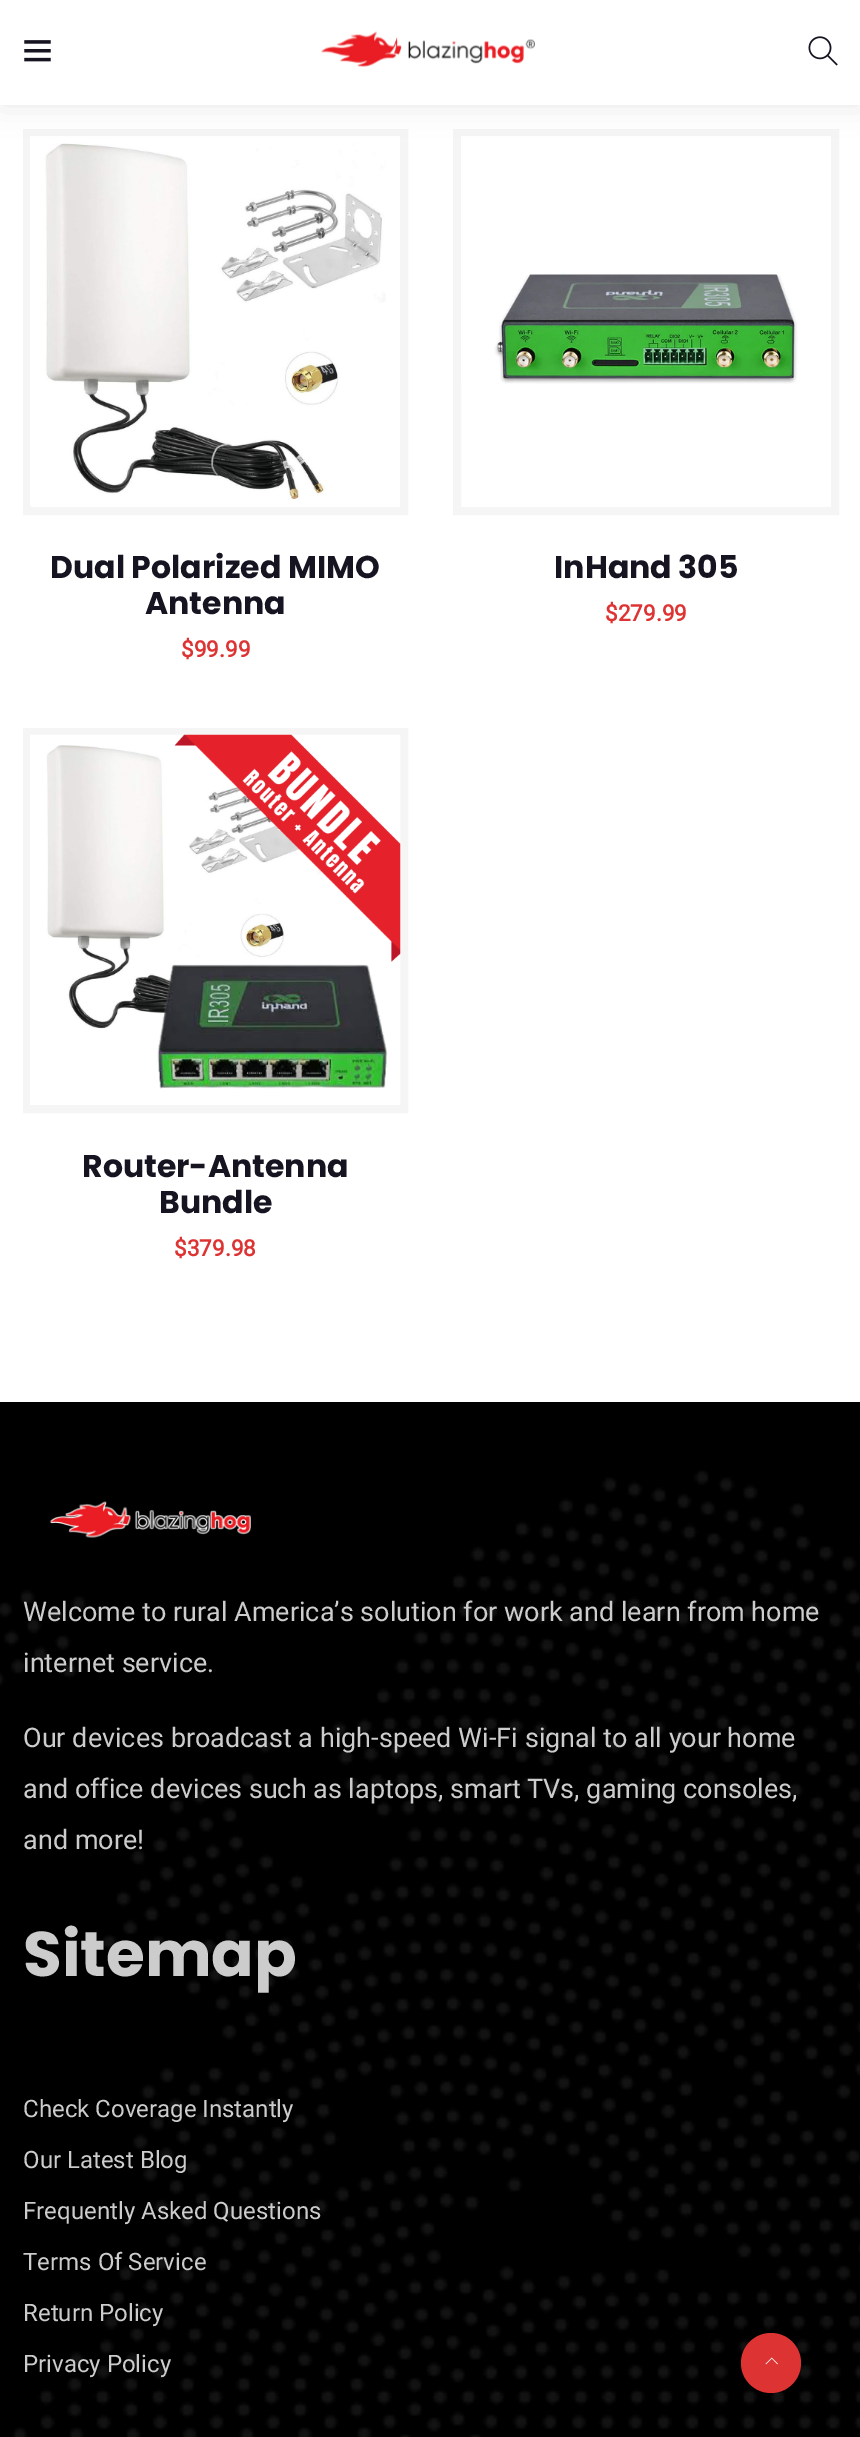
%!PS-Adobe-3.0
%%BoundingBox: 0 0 860 2437
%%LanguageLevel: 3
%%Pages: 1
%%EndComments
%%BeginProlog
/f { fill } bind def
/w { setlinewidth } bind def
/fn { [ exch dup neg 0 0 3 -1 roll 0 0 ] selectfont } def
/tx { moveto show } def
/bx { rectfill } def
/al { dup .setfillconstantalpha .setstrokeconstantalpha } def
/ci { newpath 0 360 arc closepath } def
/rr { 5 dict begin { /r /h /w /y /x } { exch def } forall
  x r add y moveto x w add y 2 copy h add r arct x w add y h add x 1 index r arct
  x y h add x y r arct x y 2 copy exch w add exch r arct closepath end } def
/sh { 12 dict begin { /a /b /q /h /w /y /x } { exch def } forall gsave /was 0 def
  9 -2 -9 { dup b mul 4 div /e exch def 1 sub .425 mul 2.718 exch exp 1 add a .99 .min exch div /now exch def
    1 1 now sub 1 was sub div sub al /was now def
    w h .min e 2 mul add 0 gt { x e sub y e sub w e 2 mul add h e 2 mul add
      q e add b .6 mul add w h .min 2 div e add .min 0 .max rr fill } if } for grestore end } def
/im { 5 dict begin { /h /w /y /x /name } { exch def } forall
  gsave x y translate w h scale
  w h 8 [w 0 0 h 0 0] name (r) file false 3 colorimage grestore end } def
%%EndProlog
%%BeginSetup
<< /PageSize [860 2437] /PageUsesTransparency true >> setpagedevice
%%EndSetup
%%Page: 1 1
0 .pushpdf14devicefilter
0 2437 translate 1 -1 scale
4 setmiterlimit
1 setgray
0 0 860 2437 bx
0.961 setgray
8 w
27 133 377 378 rectstroke
(image3.raw) 30 136 370 370 im
457 133 378 378 rectstroke
(image4.raw) 461 136 370 248 im
0 setgray
2 2 858 102 0 15 0.1 sh
1 setgray
0 0 860 105 bx
(image0.raw) 24 40 27 22 im
(image1.raw) 321 31 214 36 im
(image2.raw) 808 36 30 30 im
/Poppins-Bold 31.5 fn
0.09 0.078 0.133 setrgbcolor
(Dual Polarized MIMO) 50 578 tx
(Antenna) 145 614 tx
/Roboto-Bold 22.5 fn
0.867 0.2 0.196 setrgbcolor
($99.99) 181 657 tx
/Poppins-Bold 31.5 fn
0.09 0.078 0.133 setrgbcolor
(InHand 305) 554 578 tx
/Roboto-Bold 22.5 fn
0.867 0.2 0.196 setrgbcolor
($279.99) 605 621 tx
0.961 setgray
27 732 377 377 rectstroke
(image5.raw) 30 734 371 371 im
/Poppins-Bold 31.5 fn
0.09 0.078 0.133 setrgbcolor
(Router-Antenna) 82 1177 tx
(Bundle) 159 1213 tx
/Roboto-Bold 22.5 fn
0.867 0.2 0.196 setrgbcolor
($379.98) 174 1256 tx
(image6.raw) 0 1402 860 1035 im
(image7.raw) 49 1501 202 37 im
/Roboto-Regular 27 fn
0.8 setgray
(Welcome to rural America’s solution for work and learn from home) 23 1621 tx
(internet service.) 23 1672 tx
(Our devices broadcast a high-speed Wi-Fi signal to all your home) 23 1747 tx
(and office devices such as laptops, smart TVs, gaming consoles,) 23 1798 tx
(and more!) 23 1849 tx
/Poppins-Bold 63 fn
(Sitemap) 23 1976 tx
/Roboto-Regular 24 fn
(Check Coverage Instantly) 23 2117 tx
(Our Latest Blog) 23 2168 tx
(Frequently Asked Questions) 23 2219 tx
(Terms Of Service) 23 2270 tx
(Return Policy) 23 2321 tx
(Privacy Policy) 23 2372 tx
0.867 0.2 0.196 setrgbcolor
771 2363 30 ci f
(image8.raw) 765 2357 13 8 im
.poppdf14devicefilter showpage
%%EOF
